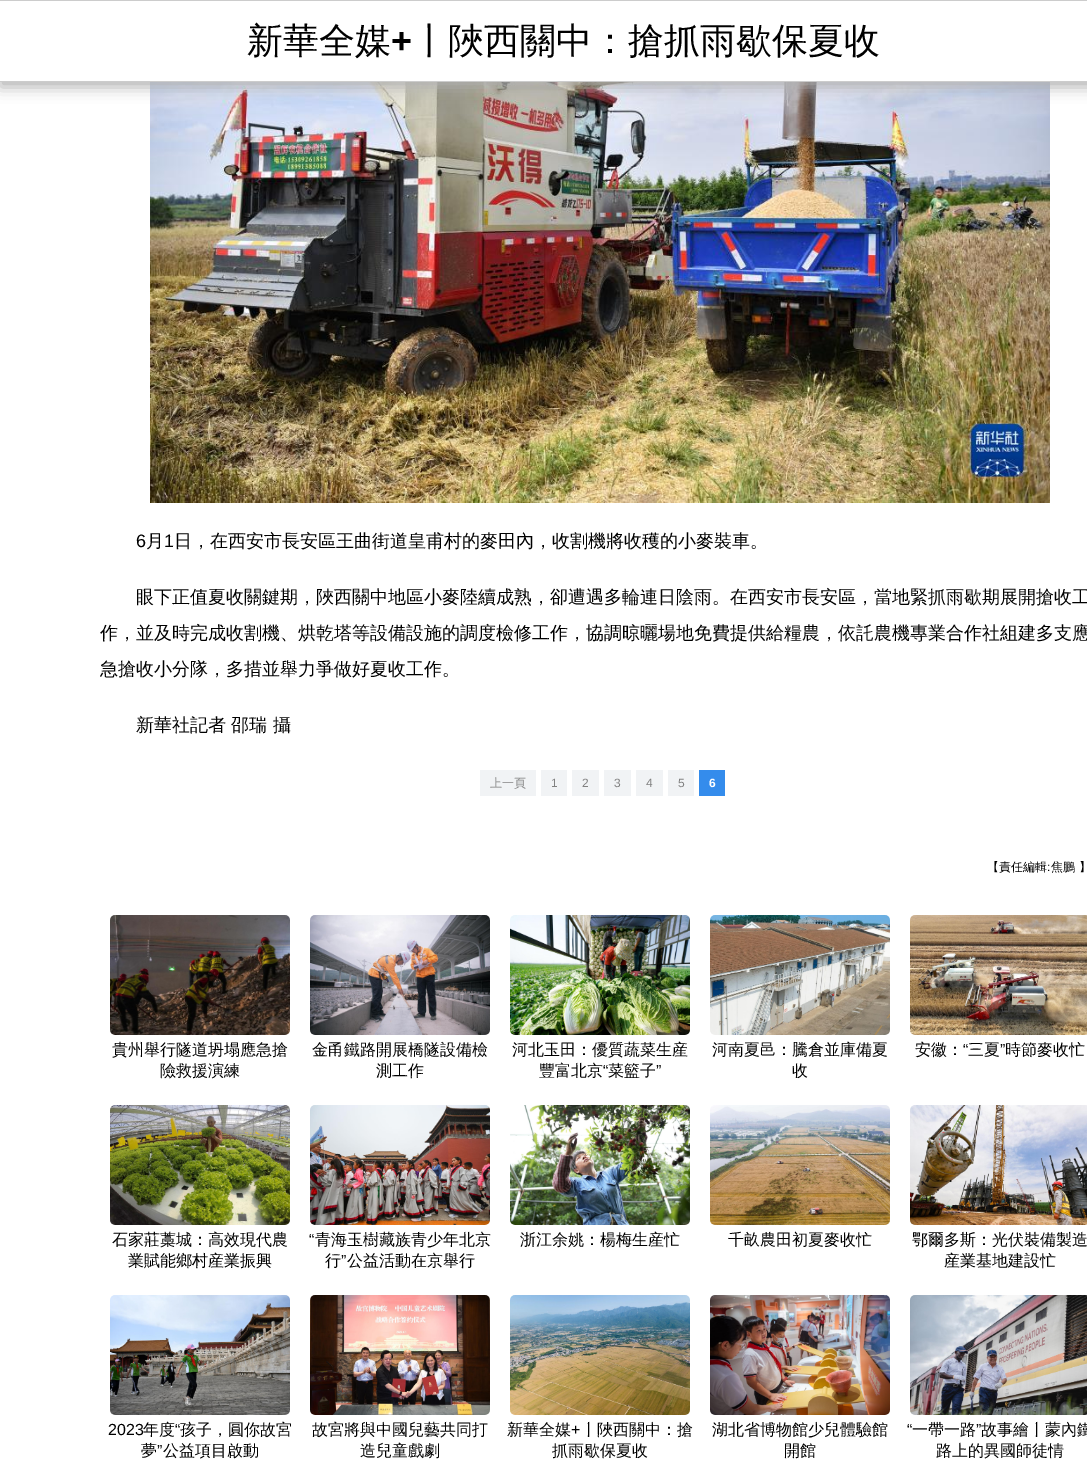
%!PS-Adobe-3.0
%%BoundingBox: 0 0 1087 1466
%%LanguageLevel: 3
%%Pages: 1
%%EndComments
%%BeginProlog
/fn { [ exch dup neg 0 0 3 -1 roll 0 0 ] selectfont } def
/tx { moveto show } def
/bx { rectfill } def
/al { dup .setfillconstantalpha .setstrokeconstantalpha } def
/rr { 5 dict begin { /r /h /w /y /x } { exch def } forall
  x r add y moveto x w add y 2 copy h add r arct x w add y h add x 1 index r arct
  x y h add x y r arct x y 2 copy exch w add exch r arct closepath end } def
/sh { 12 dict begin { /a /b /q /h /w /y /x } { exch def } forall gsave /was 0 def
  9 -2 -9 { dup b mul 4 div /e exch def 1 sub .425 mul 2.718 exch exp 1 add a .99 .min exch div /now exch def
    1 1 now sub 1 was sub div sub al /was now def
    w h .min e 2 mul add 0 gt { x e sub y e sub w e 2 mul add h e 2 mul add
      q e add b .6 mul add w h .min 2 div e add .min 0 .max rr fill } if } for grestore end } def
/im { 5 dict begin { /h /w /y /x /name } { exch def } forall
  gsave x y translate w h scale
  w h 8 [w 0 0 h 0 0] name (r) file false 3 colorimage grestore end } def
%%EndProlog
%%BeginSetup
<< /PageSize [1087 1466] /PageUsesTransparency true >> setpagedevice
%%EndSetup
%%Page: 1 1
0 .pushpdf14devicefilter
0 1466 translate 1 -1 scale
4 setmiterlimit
1 setgray
0 0 1087 1466 bx
(image0.raw) 150 82 900 421 im
0.694 setgray
0 5 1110 82 0 7.5 1 sh
1 setgray
0 1 1087 80 bx
0.8 setgray
0 0 1087 1 bx
0 81 1087 1 bx
/WenQuanYiZenHei-Medium 36 fn
0 setgray
(新華全媒) 247 53 tx
/LiberationSans-Bold 36 fn
(+) 391 53 tx
/WenQuanYiZenHei-Medium 36 fn
(丨陜西關中：搶抓雨歇保夏收) 412 53 tx
/LiberationSans-Regular 18 fn
(6) 136 547 tx
/WenQuanYiZenHei-Medium 18 fn
(月) 146 547 tx
/LiberationSans-Regular 18 fn
(1) 164 547 tx
/WenQuanYiZenHei-Medium 18 fn
(日，在西安市長安區王曲街道皇甫村的麥田內，收割機將收穫的小麥裝車。) 174 547 tx
(眼下正值夏收關鍵期，陜西關中地區小麥陸續成熟，卻遭遇多輪連日陰雨。在西安市長安區，當地緊抓雨歇期展開搶收工) 136 603 tx
(作，並及時完成收割機、烘乾塔等設備設施的調度檢修工作，協調晾曬場地免費提供給糧農，依託農機專業合作社組建多支應) 100 639 tx
(急搶收小分隊，多措並舉力爭做好夏收工作。) 100 675 tx
(新華社記者 邵瑞 攝) 136 731 tx
0.945 0.953 0.961 setrgbcolor
480 770 56 26 bx
/WenQuanYiZenHei-Medium 12 fn
0.506 setgray
(上一頁) 490 787 tx
0.945 0.953 0.961 setrgbcolor
541 770 26 26 bx
/LiberationSans-Regular 12 fn
0.506 setgray
(1) 551 787 tx
0.945 0.953 0.961 setrgbcolor
572 770 27 26 bx
0.506 setgray
(2) 582 787 tx
0.945 0.953 0.961 setrgbcolor
604 770 27 26 bx
0.506 setgray
(3) 614 787 tx
0.945 0.953 0.961 setrgbcolor
636 770 27 26 bx
0.506 setgray
(4) 646 787 tx
0.945 0.953 0.961 setrgbcolor
668 770 26 26 bx
0.506 setgray
(5) 678 787 tx
0.204 0.549 0.925 setrgbcolor
699 770 26 26 bx
/LiberationSans-Bold 12 fn
1 setgray
(6) 709 787 tx
/WenQuanYiZenHei-Medium 12 fn
0 setgray
(【責任編輯) 987 871 tx
/LiberationSans-Regular 12 fn
(:) 1047 871 tx
/WenQuanYiZenHei-Medium 12 fn
(焦鵬 】) 1051 871 tx
(image1.raw) 110 915 180 120 im
/WenQuanYiZenHei-Medium 16 fn
(貴州舉行隧道坍塌應急搶) 112 1055 tx
(險救援演練) 160 1076 tx
(image2.raw) 310 915 180 120 im
(金甬鐵路開展橋隧設備檢) 312 1055 tx
(測工作) 376 1076 tx
(image3.raw) 510 915 180 120 im
(河北玉田：優質蔬菜生産) 512 1055 tx
(豐富北京) 539 1076 tx
/LiberationSans-Regular 16 fn
(“) 603 1076 tx
/WenQuanYiZenHei-Medium 16 fn
(菜籃子) 608 1076 tx
/LiberationSans-Regular 16 fn
(”) 656 1076 tx
(image4.raw) 710 915 180 120 im
/WenQuanYiZenHei-Medium 16 fn
(河南夏邑：騰倉並庫備夏) 712 1055 tx
(收) 792 1076 tx
(image5.raw) 910 915 177 120 im
(安徽：) 915 1055 tx
/LiberationSans-Regular 16 fn
(“) 963 1055 tx
/WenQuanYiZenHei-Medium 16 fn
(三夏) 968 1055 tx
/LiberationSans-Regular 16 fn
(”) 1000 1055 tx
/WenQuanYiZenHei-Medium 16 fn
(時節麥收忙) 1005 1055 tx
(image6.raw) 110 1105 180 120 im
(石家莊藁城：高效現代農) 112 1245 tx
(業賦能鄉村産業振興) 128 1266 tx
(image7.raw) 310 1105 180 120 im
/LiberationSans-Regular 16 fn
(“) 309 1245 tx
/WenQuanYiZenHei-Medium 16 fn
(青海玉樹藏族青少年北京) 315 1245 tx
(行) 325 1266 tx
/LiberationSans-Regular 16 fn
(”) 341 1266 tx
/WenQuanYiZenHei-Medium 16 fn
(公益活動在京舉行) 347 1266 tx
(image8.raw) 510 1105 180 120 im
(浙江余姚：楊梅生産忙) 520 1245 tx
(image9.raw) 710 1105 180 120 im
(千畝農田初夏麥收忙) 728 1245 tx
(image10.raw) 910 1105 177 120 im
(鄂爾多斯：光伏裝備製造) 912 1245 tx
(産業基地建設忙) 944 1266 tx
(image11.raw) 110 1295 180 120 im
/LiberationSans-Regular 16 fn
(2023) 108 1435 tx
/WenQuanYiZenHei-Medium 16 fn
(年度) 143 1435 tx
/LiberationSans-Regular 16 fn
(“) 175 1435 tx
/WenQuanYiZenHei-Medium 16 fn
(孩子，圓你故宮) 180 1435 tx
(夢) 141 1456 tx
/LiberationSans-Regular 16 fn
(”) 157 1456 tx
/WenQuanYiZenHei-Medium 16 fn
(公益項目啟動) 163 1456 tx
(image12.raw) 310 1295 180 120 im
(故宮將與中國兒藝共同打) 312 1435 tx
(造兒童戲劇) 360 1456 tx
(image13.raw) 510 1295 180 120 im
(新華全媒) 507 1435 tx
/LiberationSans-Regular 16 fn
(+) 571 1435 tx
/WenQuanYiZenHei-Medium 16 fn
(丨陜西關中：搶) 581 1435 tx
(抓雨歇保夏收) 552 1456 tx
(image14.raw) 710 1295 180 120 im
(湖北省博物館少兒體驗館) 712 1435 tx
(開館) 784 1456 tx
(image15.raw) 910 1295 177 120 im
/LiberationSans-Regular 16 fn
(“) 907 1435 tx
/WenQuanYiZenHei-Medium 16 fn
(一帶一路) 912 1435 tx
/LiberationSans-Regular 16 fn
(”) 976 1435 tx
/WenQuanYiZenHei-Medium 16 fn
(故事繪丨蒙內鐵) 981 1435 tx
(路上的異國師徒情) 936 1456 tx
.poppdf14devicefilter showpage
%%EOF
